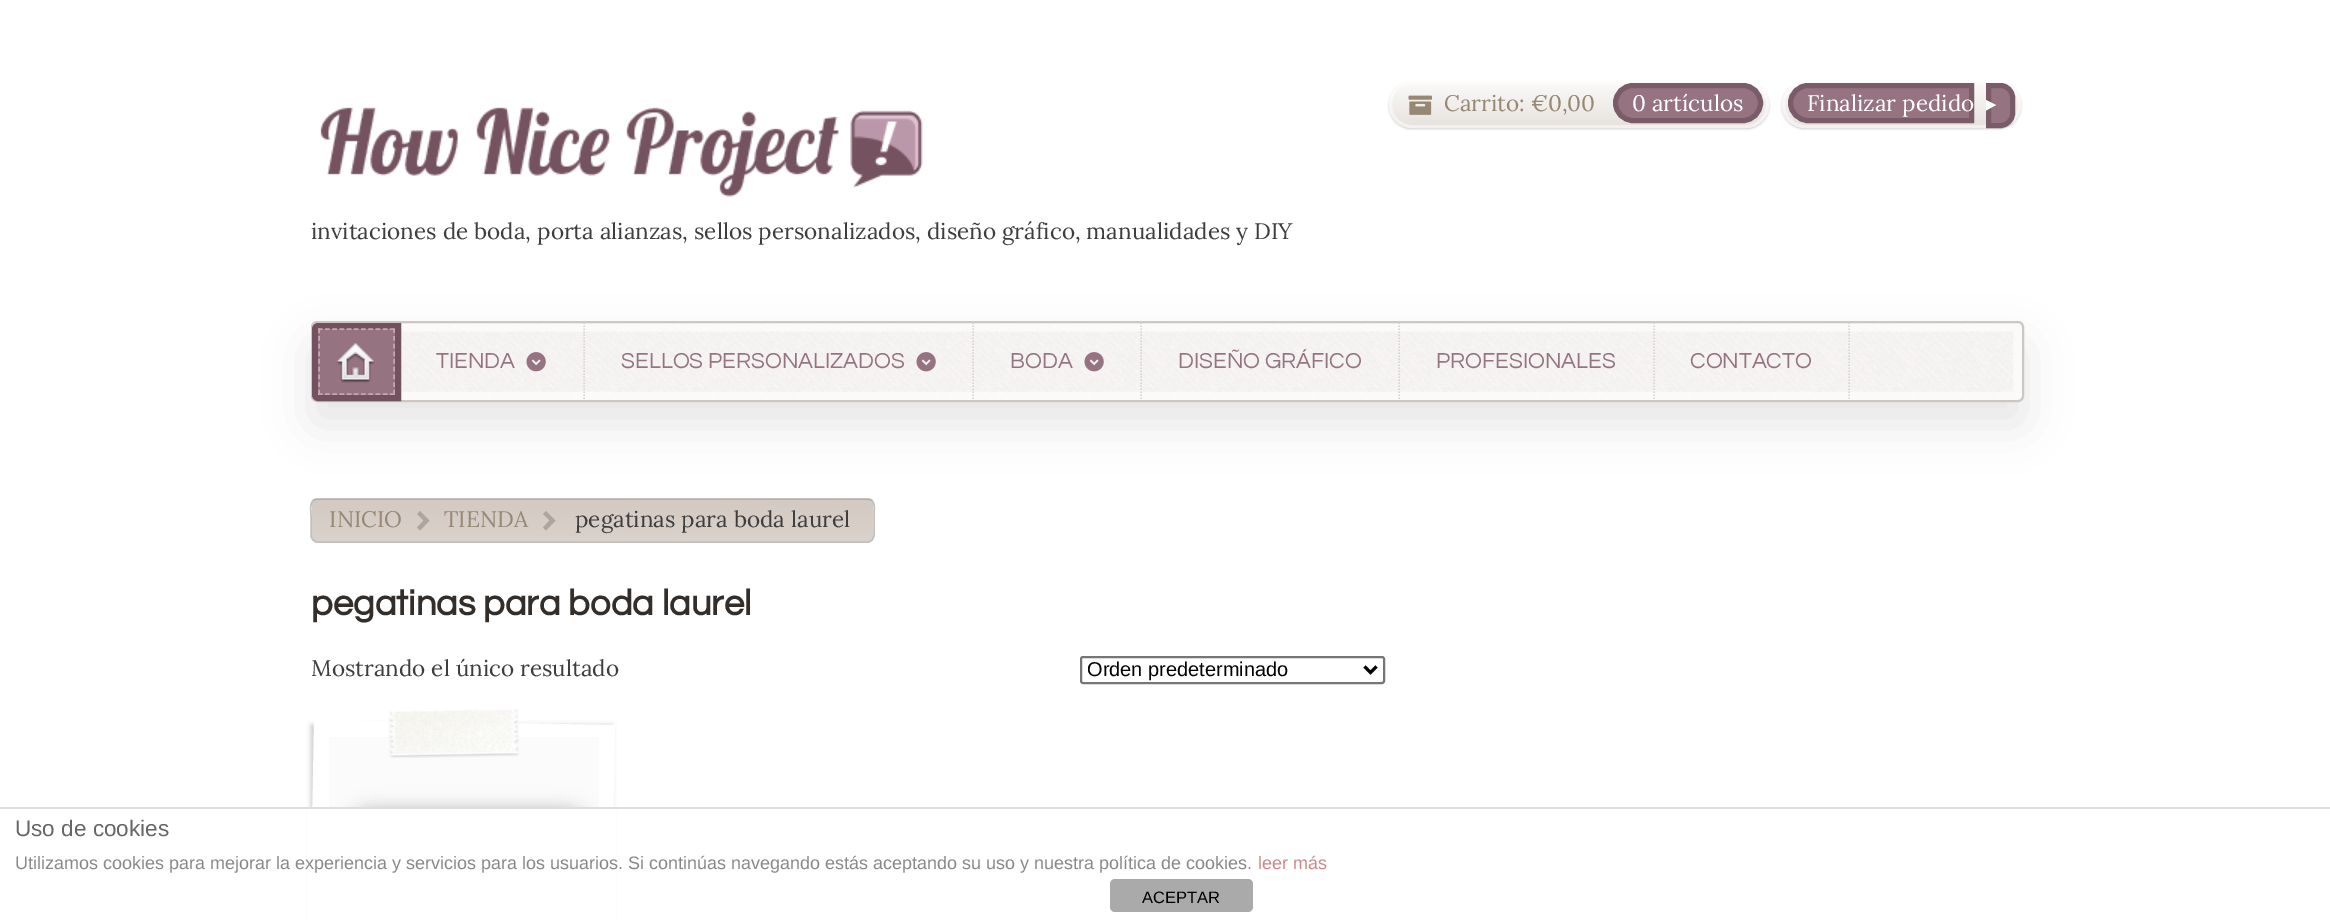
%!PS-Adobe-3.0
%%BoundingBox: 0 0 2330 920
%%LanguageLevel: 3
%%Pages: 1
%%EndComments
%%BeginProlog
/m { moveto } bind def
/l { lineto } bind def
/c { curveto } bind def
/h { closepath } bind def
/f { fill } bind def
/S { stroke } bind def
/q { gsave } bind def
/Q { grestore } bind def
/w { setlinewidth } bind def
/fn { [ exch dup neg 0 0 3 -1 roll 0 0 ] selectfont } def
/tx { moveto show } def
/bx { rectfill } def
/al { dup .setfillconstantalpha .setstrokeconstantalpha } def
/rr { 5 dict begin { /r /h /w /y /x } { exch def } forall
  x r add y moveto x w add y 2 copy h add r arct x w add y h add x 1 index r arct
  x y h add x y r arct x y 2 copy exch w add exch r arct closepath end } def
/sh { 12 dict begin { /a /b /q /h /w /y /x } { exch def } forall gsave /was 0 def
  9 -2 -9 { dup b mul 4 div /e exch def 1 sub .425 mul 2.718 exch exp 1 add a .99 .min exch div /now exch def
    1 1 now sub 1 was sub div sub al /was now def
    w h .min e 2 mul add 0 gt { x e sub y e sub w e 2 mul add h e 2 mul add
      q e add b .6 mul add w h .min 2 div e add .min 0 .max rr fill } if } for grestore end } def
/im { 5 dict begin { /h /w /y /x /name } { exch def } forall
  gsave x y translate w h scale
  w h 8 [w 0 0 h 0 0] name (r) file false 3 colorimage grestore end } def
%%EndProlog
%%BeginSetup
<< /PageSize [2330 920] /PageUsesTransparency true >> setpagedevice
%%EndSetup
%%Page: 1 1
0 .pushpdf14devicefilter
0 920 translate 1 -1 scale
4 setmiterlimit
1 setgray
0 0 2330 920 bx
0 setgray
1389 83 380 46 23 1 0.2 sh
q 1389 81 380 47 23 rr clip newpath
<< /ShadingType 2 /ColorSpace /DeviceRGB /Coords [1579 81 1579 128] /Extend [true true] /Function << /FunctionType 2 /Domain [0 1] /C0 [0.988 0.984 0.98] /C1 [0.902 0.882 0.867] /N 1 >> >> shfill Q
0.5 al
1 setgray
3 w
1390.5 82.5 377 44 21.5 rr S
1 al
(image0.raw) 1408 95 24 20 im
/Lora-Regular 22.5 fn
0.588 0.533 0.451 setrgbcolor
(Carrito: €0,00) 1444 111 tx
0.588 0.451 0.506 setrgbcolor
1615.5 85.5 145 35 17.5 rr q f Q
0.478 0.361 0.408 setrgbcolor
5 w
S
1 setgray
(0 artículos) 1632 111 tx
0 setgray
1782 83 239 46 23 1 0.2 sh
q 1782 81 239 47 23 rr clip newpath
<< /ShadingType 2 /ColorSpace /DeviceRGB /Coords [1901 81 1901 128] /Extend [true true] /Function << /FunctionType 2 /Domain [0 1] /C0 [0.988 0.984 0.98] /C1 [0.902 0.882 0.867] /N 1 >> >> shfill Q
0.5 al
1 setgray
3 w
1783.5 82.5 236 44 21.5 rr S
1 al
0.588 0.451 0.506 setrgbcolor
1808 85.5 m 1971.5 85.5 l 1971.5 120.5 l 1808 120.5 l 1798.5 120.5 1790.5 112.5 1790.5 103 c 1790.5 93.5 1798.5 85.5 1808 85.5 c h q f Q
0.478 0.361 0.408 setrgbcolor
5 w
S
0.588 0.451 0.506 setrgbcolor
1988.5 85.5 m 2000.5 85.5 l 2007 85.5 2012.5 91 2012.5 97.5 c 2012.5 113.5 l 2012.5 120 2007 125.5 2000.5 125.5 c 1988.5 125.5 l h q f Q
0.478 0.361 0.408 setrgbcolor
S
1 setgray
(Finalizar pedido) 1807 111 tx
1996 105 m 1986 110.5 l 1986 100 l h f
(image1.raw) 320 107 603 90 im
0.243 setgray
(invitaciones de boda, porta alianzas, sellos personalizados, diseño gráfico, manualidades y DIY) 311 239 tx
0 setgray
311 344 1713 81 6 22.5 0.1 sh
(image2.raw) 312 323 1710 77 im
0.6 al
1 setgray
8.6 w
316.5 327 m 2017.5 327 l 2017.5 396 l 316.5 396 l h S
1 al
0.8 0.78 0.765 setrgbcolor
2 w
312 322 1711 79 5 rr S
0.455 0.318 0.373 setrgbcolor
6 w
318 326 m 398 326 l 398 398 l 318 398 l 316.5 398 315 396.5 315 395 c 315 329 l 315 327.5 316.5 326 318 326 c h S
0.588 0.451 0.506 setrgbcolor
318 329 77 66 bx
(image3.raw) 336 343 39 40 im
0.788 0.651 0.706 setrgbcolor
1.5 w
[4.5 2.7] 0 setdash
318 329 m 394.5 329 l S
[4.5 3.18] 0 setdash
394 328.5 m 394 394.5 l S
[4.5 2.7] 0 setdash
318 394 m 394.5 394 l S
[4.5 3.18] 0 setdash
319 328.5 m 319 394.5 l S
0.859 0.831 0.808 setrgbcolor
[1.5 1.5] 0 setdash
584 322.5 m 584 400.5 l S
/Questrial-Regular 22.5 fn
0.588 0.451 0.506 setrgbcolor
(TIENDA) 436 368 tx
(image4.raw) 526 352 20 20 im
0.859 0.831 0.808 setrgbcolor
973 322.5 m 973 400.5 l S
0.588 0.451 0.506 setrgbcolor
(SELLOS PERSONALIZADOS) 621 368 tx
(image5.raw) 916 352 20 20 im
0.859 0.831 0.808 setrgbcolor
1141 322.5 m 1141 400.5 l S
0.588 0.451 0.506 setrgbcolor
(BODA) 1010 368 tx
(image6.raw) 1084 352 20 20 im
0.859 0.831 0.808 setrgbcolor
1399 322.5 m 1399 399 l S
0.588 0.451 0.506 setrgbcolor
(DISEÑO GRÁFICO) 1178 368 tx
0.859 0.831 0.808 setrgbcolor
1654 322.5 m 1654 399 l S
0.588 0.451 0.506 setrgbcolor
(PROFESIONALES) 1436 368 tx
0.859 0.831 0.808 setrgbcolor
1849 322.5 m 1849 399 l S
0.588 0.451 0.506 setrgbcolor
(CONTACTO) 1690 368 tx
q 312 500 561 42 6 rr clip newpath
<< /ShadingType 2 /ColorSpace /DeviceRGB /Coords [593 500 593 542] /Extend [true true] /Function << /FunctionType 2 /Domain [0 1] /C0 [0.827 0.792 0.765] /C1 [0.851 0.82 0.796] /N 1 >> >> shfill Q
0.702 0.682 0.667 setrgbcolor
[] 0 setdash
313 500.5 m 314.5 499.5 316 499 318 499 c 867 499 l 869 499 870.5 499.5 872 500.5 c S
0.769 0.749 0.733 setrgbcolor
872 500.5 m 875.5 504.5 874 511 874 515.5 c 874 535.5 l 873.5 539 871.5 541.5 868.5 542 c 316.5 542 l 313.5 541.5 311.5 539 311 535.5 c 311 515.5 l 311 511 309.5 504.5 313 500.5 c S
/Lora-Regular 22.5 fn
0.588 0.533 0.451 setrgbcolor
(INICIO) 329 527 tx
0.69 0.647 0.612 setrgbcolor
420 511 m 429.5 520.5 l 420 530.5 l 417 527.5 l 423.5 520.5 l 417 514 l h f
0.588 0.533 0.451 setrgbcolor
(TIENDA) 444 527 tx
0.69 0.647 0.612 setrgbcolor
546 511 m 555.5 520.5 l 546 530.5 l 543 527.5 l 549.5 520.5 l 543 514 l h f
0.243 setgray
(pegatinas para boda laurel) 575 527 tx
/Questrial-Bold 36.4 fn
0.204 0.18 0.165 setrgbcolor
(pegatinas para boda laurel) 311 615 tx
/Lora-Regular 22.5 fn
0.243 setgray
(Mostrando el único resultado) 311 676 tx
0.463 setgray
2 w
1081 657 303 26 2 rr S
0 setgray
3 w
1364.5 666.5 m 1370.5 672.5 l 1376.5 666.5 l S
/LiberationSans-Regular 20 fn
(Orden predeterminado) 1087 676 tx
311 725 301 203 0 2.5 0.2 sh
1 setgray
314 720 m 615 725 l 609 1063 l 308 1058 l h f
(image8.raw) 329 737 270 70 im
(image7.raw) 388 709 131 49 im
307 809 309 111 bx
0.867 setgray
0 807 2330 2 bx
/LiberationSans-Regular 22.5 fn
0.4 setgray
(Uso de cookies) 15 836 tx
/LiberationSans-Regular 18 fn
0.533 setgray
(Utilizamos cookies para mejorar la experiencia y servicios para los usuarios. Si continúas navegando estás aceptando su uso y nuestra política de cookies.) 15 869 tx
0.8 0.533 0.533 setrgbcolor
(leer más) 1258 869 tx
0.667 setgray
1110 879 143 33 5 rr f
/LiberationSans-Regular 16.5 fn
0 setgray
(ACEPTAR) 1142 903 tx
.poppdf14devicefilter showpage
%%EOF
